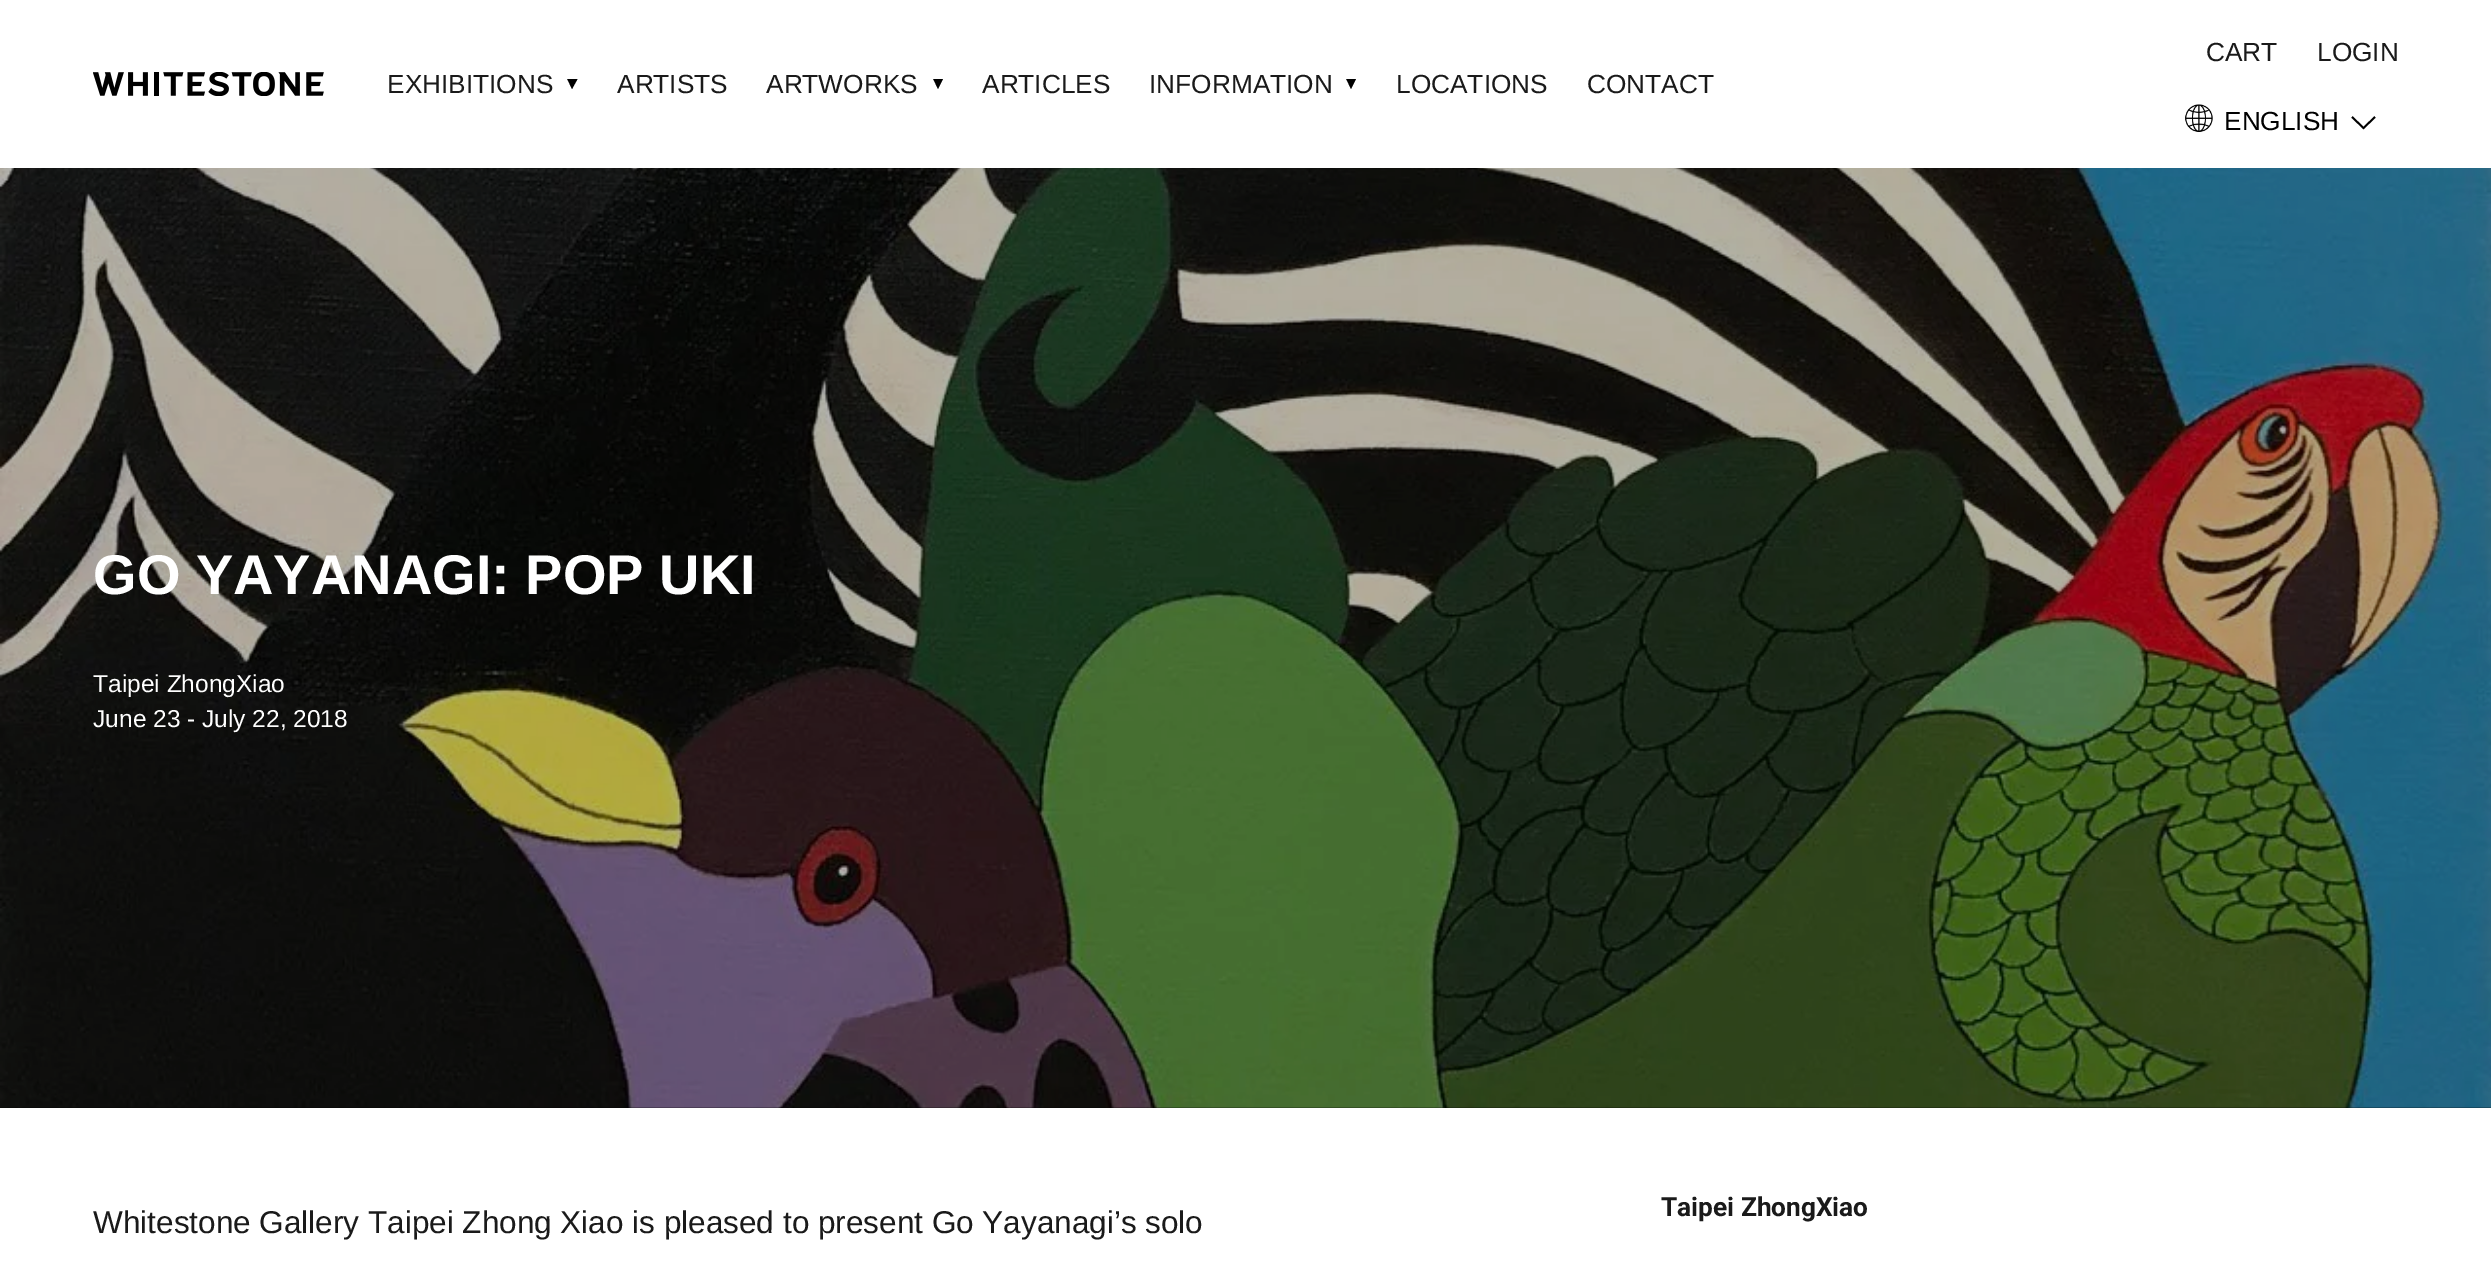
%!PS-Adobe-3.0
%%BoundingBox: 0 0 2491 1272
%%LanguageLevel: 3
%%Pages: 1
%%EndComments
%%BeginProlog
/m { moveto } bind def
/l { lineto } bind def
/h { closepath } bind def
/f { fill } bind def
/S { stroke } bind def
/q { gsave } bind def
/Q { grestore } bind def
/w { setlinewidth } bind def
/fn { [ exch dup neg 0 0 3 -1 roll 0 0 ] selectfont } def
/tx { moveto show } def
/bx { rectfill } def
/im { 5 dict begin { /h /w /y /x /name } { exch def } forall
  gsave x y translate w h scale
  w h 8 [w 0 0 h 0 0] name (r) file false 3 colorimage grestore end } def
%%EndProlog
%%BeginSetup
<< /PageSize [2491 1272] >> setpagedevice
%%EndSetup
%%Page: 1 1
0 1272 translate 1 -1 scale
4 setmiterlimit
1 setgray
0 0 2491 1272 bx
(image0.raw) 93 72 231 24 im
/LiberationSans-Regular 26.25 fn
0.102 setgray
(EXHIBITIONS) 387 93 tx
q
567 79 11 10 rectclip
0 setgray
572 89 m 567 78.5 l 577.5 79 l h f
Q
(ARTISTS) 617 93 tx
(ARTWORKS) 766 93 tx
q
933 79 10 10 rectclip
0 setgray
938 89 m 933 78.5 l 943 79 l h f
Q
(ARTICLES) 982 93 tx
(INFORMATION) 1149 93 tx
q
1346 79 10 10 rectclip
0 setgray
1351 89 m 1346 78.5 l 1356 79 l h f
Q
(LOCATIONS) 1396 93 tx
(CONTACT) 1587 93 tx
(CART) 2206 61 tx
(LOGIN) 2317 61 tx
(image1.raw) 2185 104 28 28 im
0 setgray
(ENGLISH) 2224 130 tx
1.8 w
2352 117 m 2363.5 128 l 2375 117 l S
(image2.raw) 0 168 2491 940 im
/LiberationSans-Bold 56 fn
1 setgray
(GO YAYANAGI: POP UKI) 93 594 tx
/LiberationSans-Regular 24.5 fn
(Taipei ZhongXiao) 93 692 tx
(June 23 - July 22, 2018) 93 727 tx
/LiberationSans-Regular 31.5 fn
0.102 setgray
(Whitestone Gallery Taipei Zhong Xiao is pleased to present Go Yayanagi’s solo) 93 1233 tx
/Roboto-Bold 26.25 fn
(Taipei ZhongXiao) 1661 1216 tx
showpage
%%EOF
